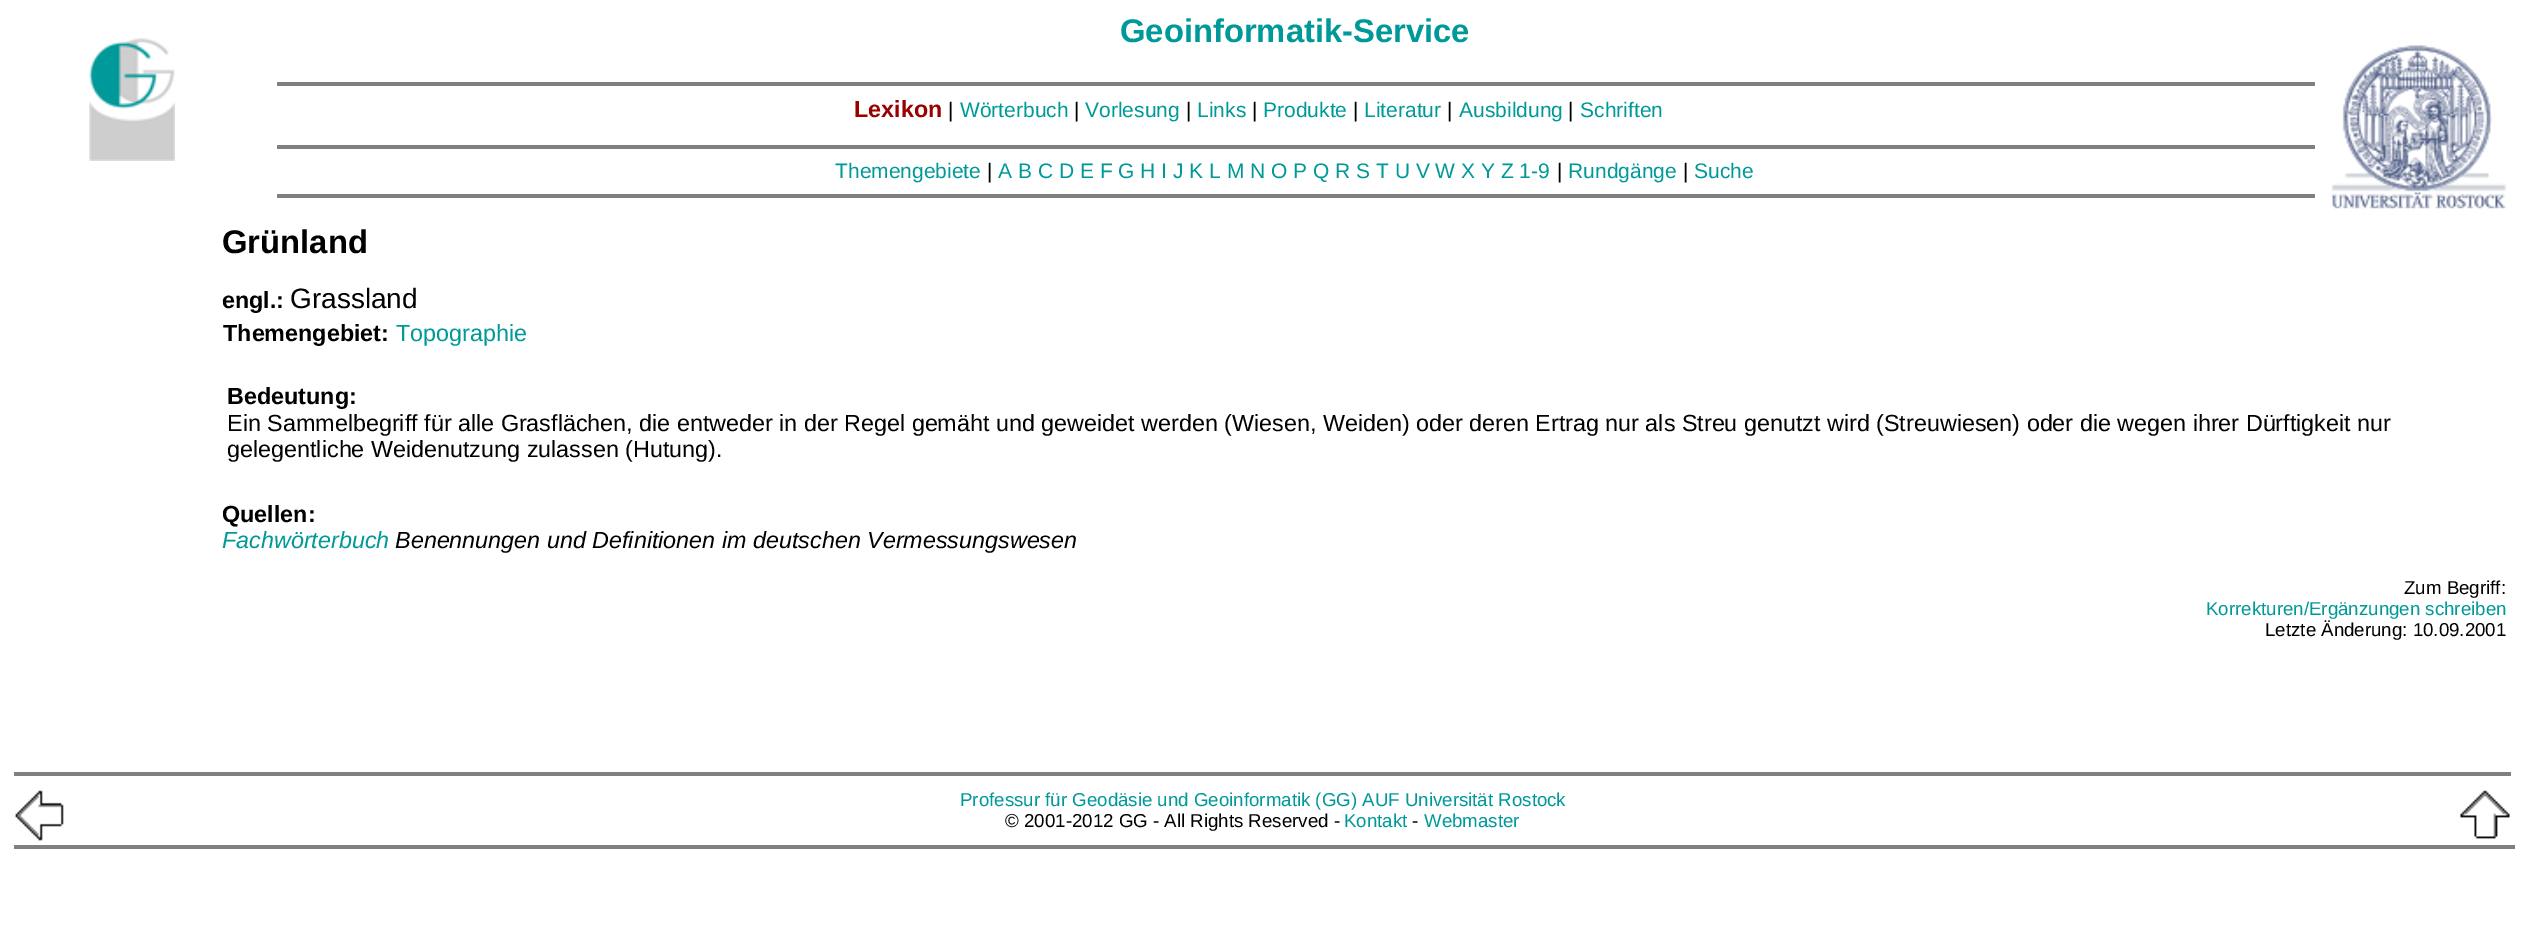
%!PS-Adobe-3.0
%%BoundingBox: 0 0 2525 944
%%LanguageLevel: 3
%%Pages: 1
%%EndComments
%%BeginProlog
/fn { [ exch dup neg 0 0 3 -1 roll 0 0 ] selectfont } def
/tx { moveto show } def
/bx { rectfill } def
/im { 5 dict begin { /h /w /y /x /name } { exch def } forall
  gsave x y translate w h scale
  w h 8 [w 0 0 h 0 0] name (r) file false 3 colorimage grestore end } def
%%EndProlog
%%BeginSetup
<< /PageSize [2525 944] >> setpagedevice
%%EndSetup
%%Page: 1 1
0 944 translate 1 -1 scale
4 setmiterlimit
1 setgray
0 0 2525 944 bx
(image0.raw) 89 38 86 123 im
/LiberationSans-Bold 32.75 fn
0 0.6 0.6 setrgbcolor
(Geoinformatik-Service) 1120 42 tx
0.502 setgray
277 82 2038 4 bx
/LiberationSans-Bold 23.33 fn
0.6 0 0 setrgbcolor
(Lexikon) 854 117 tx
/LiberationSans-Regular 21 fn
0 setgray
(|) 948 117 tx
0 0.6 0.6 setrgbcolor
(Wörterbuch) 960 117 tx
0 setgray
(|) 1074 117 tx
0 0.6 0.6 setrgbcolor
(Vorlesung) 1085 117 tx
0 setgray
(|) 1186 117 tx
0 0.6 0.6 setrgbcolor
(Links) 1197 117 tx
0 setgray
(|) 1252 117 tx
0 0.6 0.6 setrgbcolor
(Produkte) 1263 117 tx
0 setgray
(|) 1353 117 tx
0 0.6 0.6 setrgbcolor
(Literatur) 1364 117 tx
0 setgray
(|) 1447 117 tx
0 0.6 0.6 setrgbcolor
(Ausbildung) 1459 117 tx
0 setgray
(|) 1568 117 tx
0 0.6 0.6 setrgbcolor
(Schriften) 1580 117 tx
0.502 setgray
277 145 2038 4 bx
0 0.6 0.6 setrgbcolor
(Themengebiete) 835 178 tx
0 setgray
(|) 987 178 tx
0 0.6 0.6 setrgbcolor
(A B C D E F G H I J K L M N O P Q R S T U V W X Y Z 1-9) 998 178 tx
0 setgray
(|) 1557 178 tx
0 0.6 0.6 setrgbcolor
(Rundgänge) 1568 178 tx
0 setgray
(|) 1683 178 tx
0 0.6 0.6 setrgbcolor
(Suche) 1694 178 tx
0.502 setgray
277 194 2038 4 bx
(image1.raw) 2331 45 175 164 im
/LiberationSans-Bold 32.75 fn
0 setgray
(Grünland) 222 253 tx
/LiberationSans-Bold 23.33 fn
(engl.:) 222 308 tx
/LiberationSans-Regular 28 fn
(Grassland) 290 308 tx
/LiberationSans-Bold 23.33 fn
(Themengebiet:) 223 341 tx
/LiberationSans-Regular 23.33 fn
0 0.6 0.6 setrgbcolor
(Topographie) 396 341 tx
/LiberationSans-Bold 23.33 fn
0 setgray
(Bedeutung:) 227 404 tx
/LiberationSans-Regular 23.33 fn
(Ein Sammelbegriff für alle Grasflächen, die entweder in der Regel gemäht und geweidet werden \(Wiesen, Weiden\) oder deren Ertrag nur als Streu genutzt wird \(Streuwiesen\) oder die wegen ihrer Dürftigkeit nur) 227 431 tx
(gelegentliche Weidenutzung zulassen \(Hutung\).) 227 457 tx
/LiberationSans-Bold 23.33 fn
(Quellen:) 222 522 tx
/LiberationSans-Italic 23.33 fn
0 0.6 0.6 setrgbcolor
(Fachwörterbuch) 222 548 tx
0 setgray
(Benennungen und Definitionen im deutschen Vermessungswesen) 395 548 tx
/LiberationSans-Regular 18.7 fn
(Zum Begriff:) 2404 594 tx
0 0.6 0.6 setrgbcolor
(Korrekturen/Ergänzungen schreiben) 2206 615 tx
0 setgray
(Letzte Änderung: 10.09.2001) 2265 636 tx
0.502 setgray
14 772 2497 4 bx
(image2.raw) 15 790 49 51 im
0 0.6 0.6 setrgbcolor
(Professur für Geodäsie und Geoinformatik \(GG\) AUF Universität Rostock) 960 806 tx
(image3.raw) 2460 790 50 49 im
0 setgray
(© 2001-2012 GG - All Rights Reserved -) 1005 827 tx
0 0.6 0.6 setrgbcolor
(Kontakt) 1344 827 tx
0 setgray
(-) 1412 827 tx
0 0.6 0.6 setrgbcolor
(Webmaster) 1424 827 tx
0.502 setgray
14 845 2501 4 bx
showpage
%%EOF
